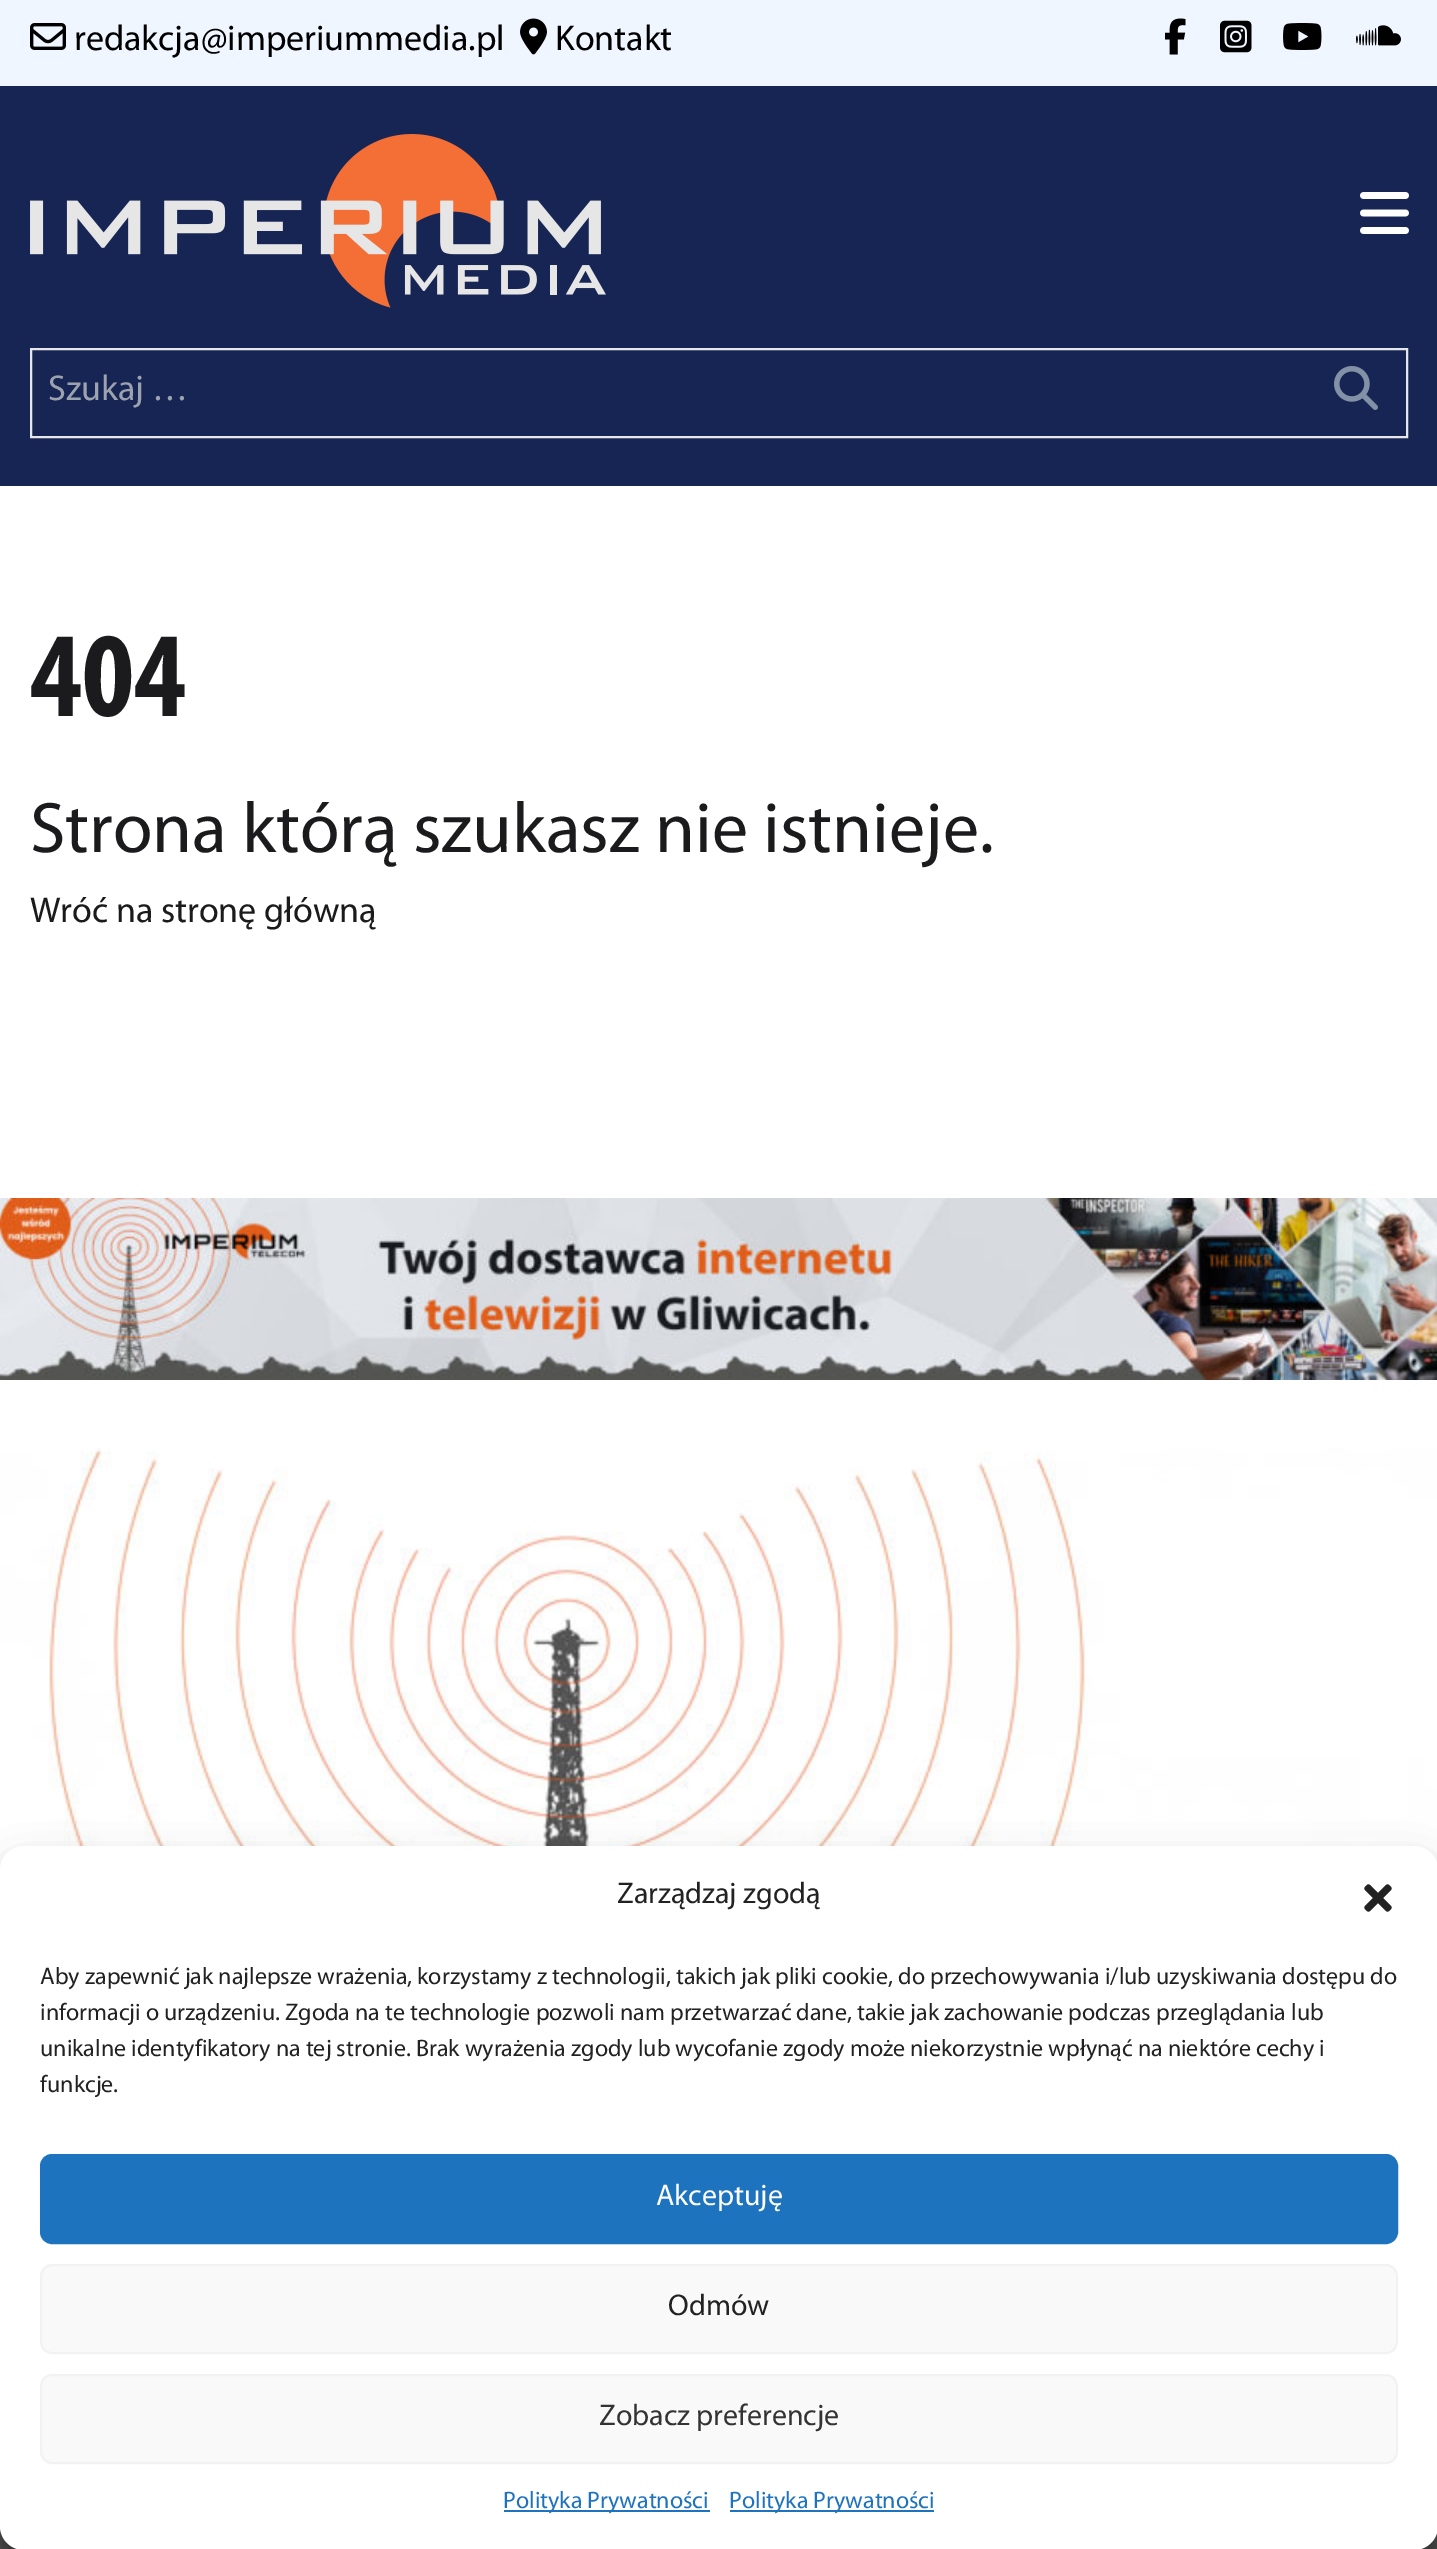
%!PS-Adobe-3.0
%%BoundingBox: 0 0 1437 2549
%%LanguageLevel: 3
%%Pages: 1
%%EndComments
%%BeginProlog
/f { fill } bind def
/S { stroke } bind def
/q { gsave } bind def
/Q { grestore } bind def
/w { setlinewidth } bind def
/fn { [ exch dup neg 0 0 3 -1 roll 0 0 ] selectfont } def
/tx { moveto show } def
/bx { rectfill } def
/al { dup .setfillconstantalpha .setstrokeconstantalpha } def
/rr { 5 dict begin { /r /h /w /y /x } { exch def } forall
  x r add y moveto x w add y 2 copy h add r arct x w add y h add x 1 index r arct
  x y h add x y r arct x y 2 copy exch w add exch r arct closepath end } def
/sh { 12 dict begin { /a /b /q /h /w /y /x } { exch def } forall gsave /was 0 def
  9 -2 -9 { dup b mul 4 div /e exch def 1 sub .425 mul 2.718 exch exp 1 add a .99 .min exch div /now exch def
    1 1 now sub 1 was sub div sub al /was now def
    w h .min e 2 mul add 0 gt { x e sub y e sub w e 2 mul add h e 2 mul add
      q e add b .6 mul add w h .min 2 div e add .min 0 .max rr fill } if } for grestore end } def
/im { 5 dict begin { /h /w /y /x /name } { exch def } forall
  gsave x y translate w h scale
  w h 8 [w 0 0 h 0 0] name (r) file false 3 colorimage grestore end } def
%%EndProlog
%%BeginSetup
<< /PageSize [1437 2549] /PageUsesTransparency true >> setpagedevice
%%EndSetup
%%Page: 1 1
0 .pushpdf14devicefilter
0 2549 translate 1 -1 scale
4 setmiterlimit
1 setgray
0 0 1437 2549 bx
(image0.raw) 0 1448 1437 1101 im
0.09 0.145 0.329 setrgbcolor
0 86 1437 400 bx
0.937 0.965 1 setrgbcolor
0 0 1437 86 bx
(image1.raw) 30 23 36 27 im
/Myriad-Regular 36 fn
0 setgray
(redakcja@imperiummedia.pl) 74 50 tx
(image2.raw) 520 18 27 37 im
(Kontakt) 555 50 tx
(image3.raw) 1165 18 21 37 im
(image4.raw) 1220 20 32 33 im
(image5.raw) 1283 23 39 27 im
(image6.raw) 1356 25 45 21 im
(image7.raw) 30 134 576 174 im
(image8.raw) 1360 192 49 42 im
0.898 0.906 0.922 setrgbcolor
2 w
31 349 1376 88 rectstroke
0.612 0.639 0.686 setrgbcolor
(Szukaj …) 48 400 tx
(image9.raw) 1334 366 44 44 im
/Myriad-Bold 122 fn
0.106 0.106 0.114 setrgbcolor
(404) 30 716 tx
/Myriad-Regular 72 fn
(Strona którą szukasz nie istnieje.) 30 852 tx
/Myriad-Regular 36 fn
(Wróć na stronę główną) 30 922 tx
(image10.raw) 0 1198 1437 182 im
0 setgray
0 1858 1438 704 24 6 0.23 sh
0 1866 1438 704 24 20 0.19 sh
1 setgray
0 1846 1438 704 24 rr f
/Myriad-Regular 30 fn
0.133 setgray
(Zarządzaj zgodą) 617 1903 tx
(image11.raw) 1364 1884 28 28 im
/Myriad-Regular 24 fn
(Aby zapewnić jak najlepsze wrażenia, korzystamy z technologii, takich jak pliki cookie, do przechowywania i/lub uzyskiwania dostępu do) 40 1984 tx
(informacji o urządzeniu. Zgoda na te technologie pozwoli nam przetwarzać dane, takie jak zachowanie podczas przeglądania lub) 40 2020 tx
(unikalne identyfikatory na tej stronie. Brak wyrażenia zgody lub wycofanie zgody może niekorzystnie wpłynąć na niektóre cechy i) 40 2056 tx
(funkcje.) 40 2092 tx
0.118 0.451 0.745 setrgbcolor
41 2155 1356 88 11 rr q f Q
S
/Myriad-Regular 30 fn
1 setgray
(Akceptuję) 656 2205 tx
0.976 setgray
41 2265 1356 88 11 rr q f Q
0.949 setgray
S
0.133 setgray
(Odmów) 668 2315 tx
0.976 setgray
41 2375 1356 88 11 rr q f Q
0.949 setgray
S
0.2 setgray
(Zobacz preferencje) 599 2425 tx
0.118 0.451 0.745 setrgbcolor
504 2510 206 2 bx
/Myriad-Regular 24 fn
(Polityka Prywatności) 503 2508 tx
730 2510 204 2 bx
(Polityka Prywatności) 729 2508 tx
.poppdf14devicefilter showpage
%%EOF
